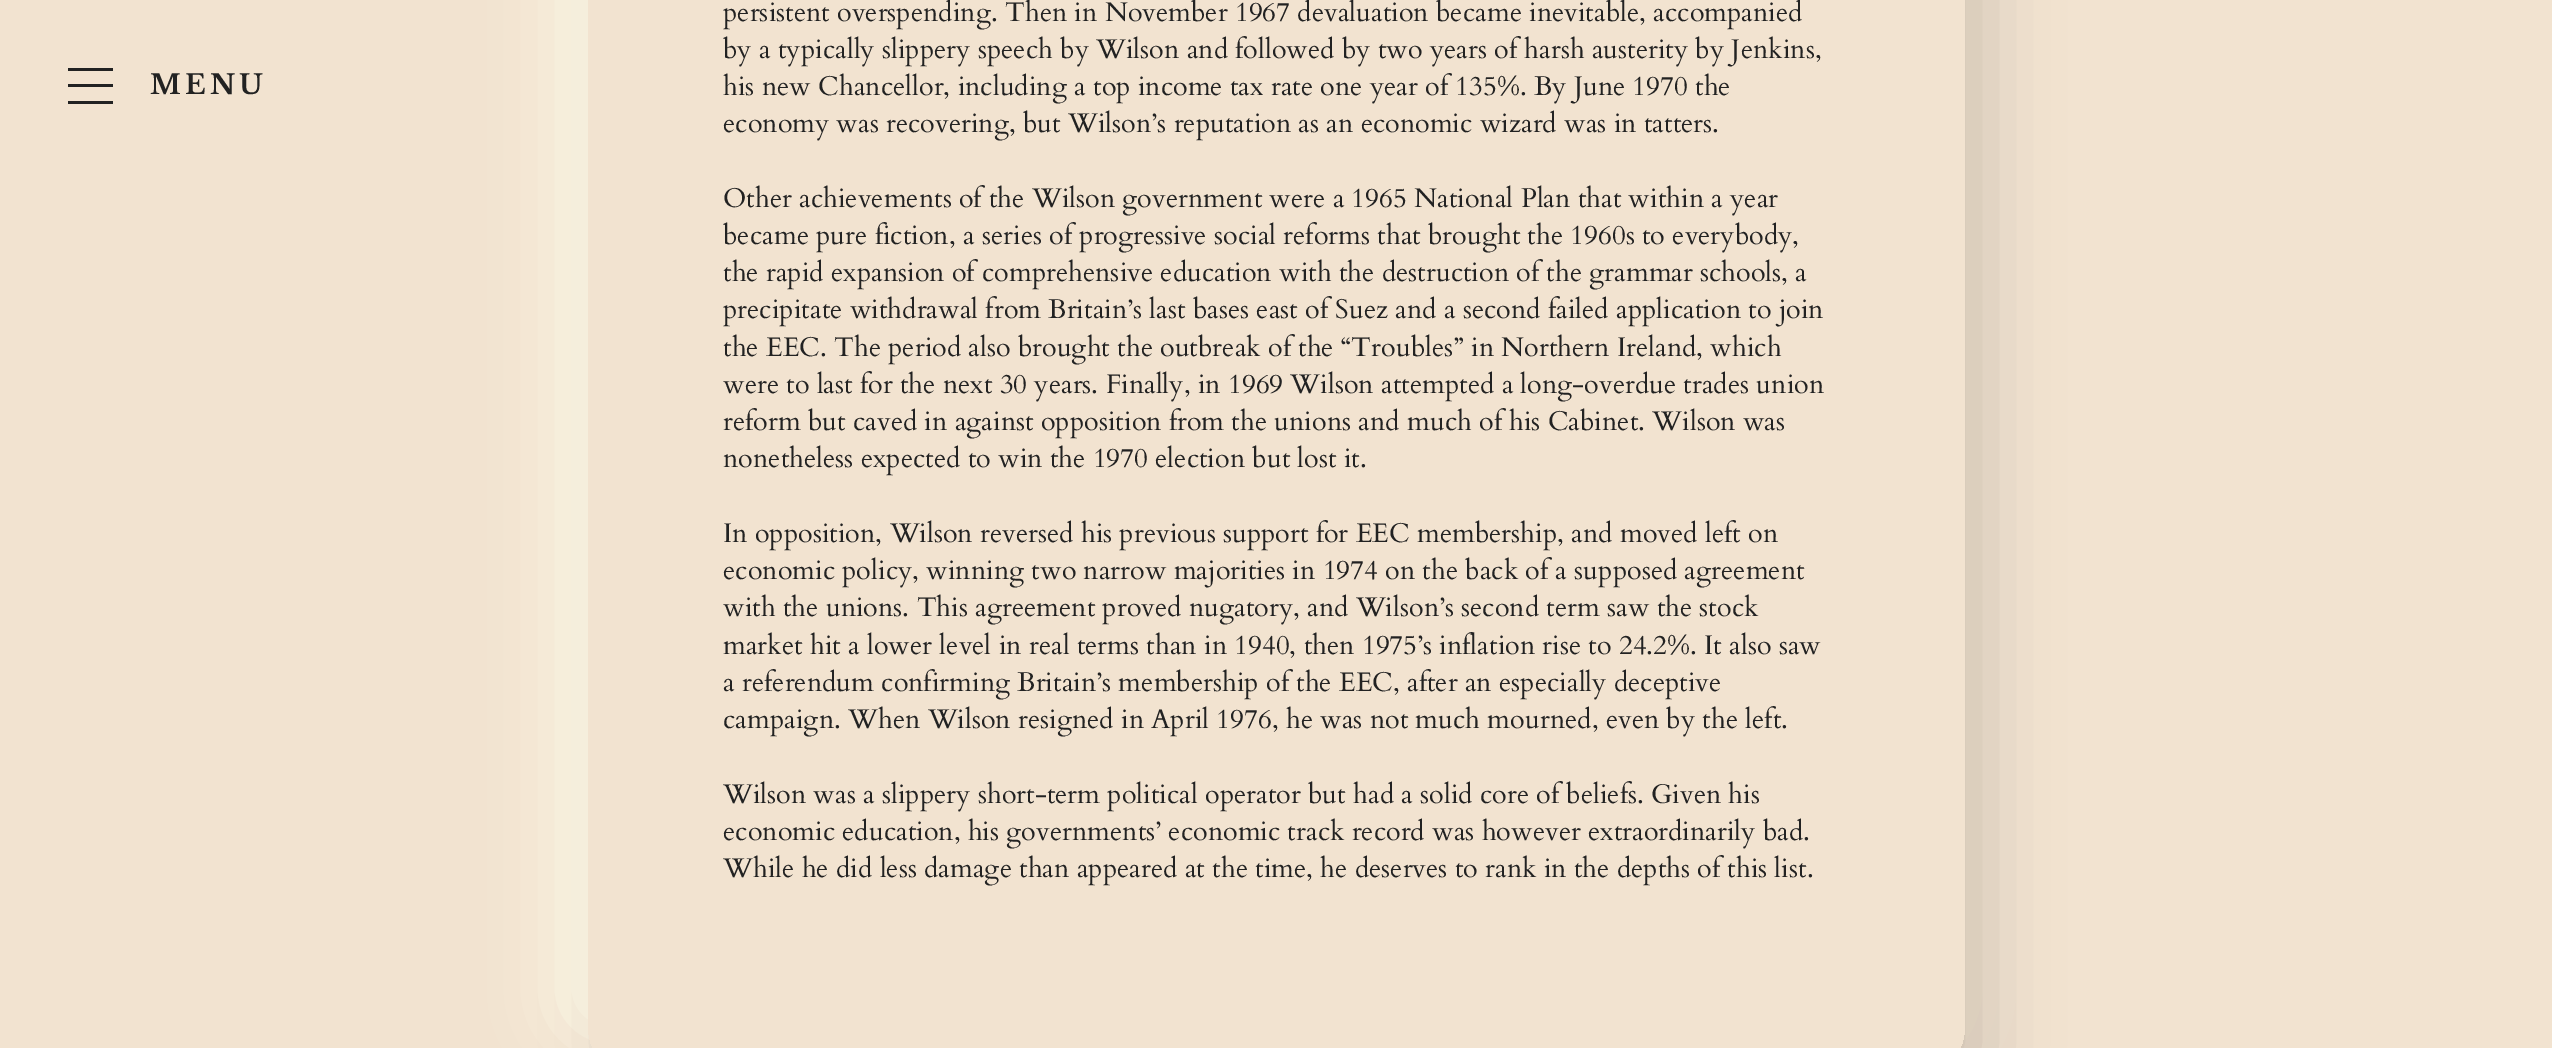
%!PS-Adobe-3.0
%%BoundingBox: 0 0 2552 1048
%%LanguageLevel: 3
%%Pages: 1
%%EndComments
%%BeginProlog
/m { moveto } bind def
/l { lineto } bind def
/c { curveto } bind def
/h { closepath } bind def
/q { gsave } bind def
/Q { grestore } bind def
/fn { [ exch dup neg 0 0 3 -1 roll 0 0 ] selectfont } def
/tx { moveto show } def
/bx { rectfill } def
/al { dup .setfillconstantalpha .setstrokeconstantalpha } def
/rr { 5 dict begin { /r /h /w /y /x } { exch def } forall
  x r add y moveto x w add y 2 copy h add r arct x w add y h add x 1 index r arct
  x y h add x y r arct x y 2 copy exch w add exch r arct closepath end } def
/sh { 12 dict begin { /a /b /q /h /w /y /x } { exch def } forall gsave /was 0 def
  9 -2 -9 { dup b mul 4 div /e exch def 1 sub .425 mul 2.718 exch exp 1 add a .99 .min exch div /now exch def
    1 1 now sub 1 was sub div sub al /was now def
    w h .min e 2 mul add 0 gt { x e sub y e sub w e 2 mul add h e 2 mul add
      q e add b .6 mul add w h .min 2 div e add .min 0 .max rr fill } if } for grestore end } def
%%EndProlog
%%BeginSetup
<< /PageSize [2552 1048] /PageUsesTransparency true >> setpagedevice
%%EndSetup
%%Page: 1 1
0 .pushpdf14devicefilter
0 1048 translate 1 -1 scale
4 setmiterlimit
0.949 0.89 0.816 setrgbcolor
0 0 2552 1048 bx
0.133 setgray
68 68 45 3 bx
68 84 45 3 bx
68 101 45 3 bx
/LibreBaskerville-Bold 27 fn
150 94 m 4 0 (MENU) ashow
q
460 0 m 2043 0 l 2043 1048 l 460 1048 l h 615 -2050 m 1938 -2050 l 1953 -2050 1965 -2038 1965 -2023 c 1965 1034 l 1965 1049 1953 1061 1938 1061 c 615 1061 l 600 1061 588 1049 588 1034 c 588 -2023 l 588 -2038 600 -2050 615 -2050 c h eoclip newpath
1 1 0.929 setrgbcolor
563 -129 1377 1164 27 34 1 sh
Q
q
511 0 m 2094 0 l 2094 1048 l 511 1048 l h 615 -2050 m 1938 -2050 l 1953 -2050 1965 -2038 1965 -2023 c 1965 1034 l 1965 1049 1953 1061 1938 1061 c 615 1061 l 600 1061 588 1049 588 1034 c 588 -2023 l 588 -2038 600 -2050 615 -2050 c h eoclip newpath
0.816 0.765 0.702 setrgbcolor
614 -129 1377 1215 27 34 1 sh
Q
/Cardo-Regular 27 fn
(persistent overspending. Then in November 1967 devaluation became inevitable, accompanied) 723 21 tx
(by a typically slippery speech by Wilson and followed by two years of harsh austerity by Jenkins,) 723 58 tx
(his new Chancellor, including a top income tax rate one year of 135%. By June 1970 the) 723 95 tx
(economy was recovering, but Wilson’s reputation as an economic wizard was in tatters.) 723 132 tx
(Other achievements of the Wilson government were a 1965 National Plan that within a year) 723 207 tx
(became pure fiction, a series of progressive social reforms that brought the 1960s to everybody,) 723 244 tx
(the rapid expansion of comprehensive education with the destruction of the grammar schools, a) 723 281 tx
(precipitate withdrawal from Britain’s last bases east of Suez and a second failed application to join) 723 318 tx
(the EEC. The period also brought the outbreak of the “Troubles” in Northern Ireland, which) 723 356 tx
(were to last for the next 30 years. Finally, in 1969 Wilson attempted a long-overdue trades union) 723 393 tx
(reform but caved in against opposition from the unions and much of his Cabinet. Wilson was) 723 430 tx
(nonetheless expected to win the 1970 election but lost it.) 723 467 tx
(In opposition, Wilson reversed his previous support for EEC membership, and moved left on) 723 542 tx
(economic policy, winning two narrow majorities in 1974 on the back of a supposed agreement) 723 579 tx
(with the unions. This agreement proved nugatory, and Wilson’s second term saw the stock) 723 616 tx
(market hit a lower level in real terms than in 1940, then 1975’s inflation rise to 24.2%. It also saw) 723 654 tx
(a referendum confirming Britain’s membership of the EEC, after an especially deceptive) 723 691 tx
(campaign. When Wilson resigned in April 1976, he was not much mourned, even by the left.) 723 728 tx
(Wilson was a slippery short-term political operator but had a solid core of beliefs. Given his) 723 803 tx
(economic education, his governments’ economic track record was however extraordinarily bad.) 723 840 tx
(While he did less damage than appeared at the time, he deserves to rank in the depths of this list.) 723 877 tx
.poppdf14devicefilter showpage
%%EOF
